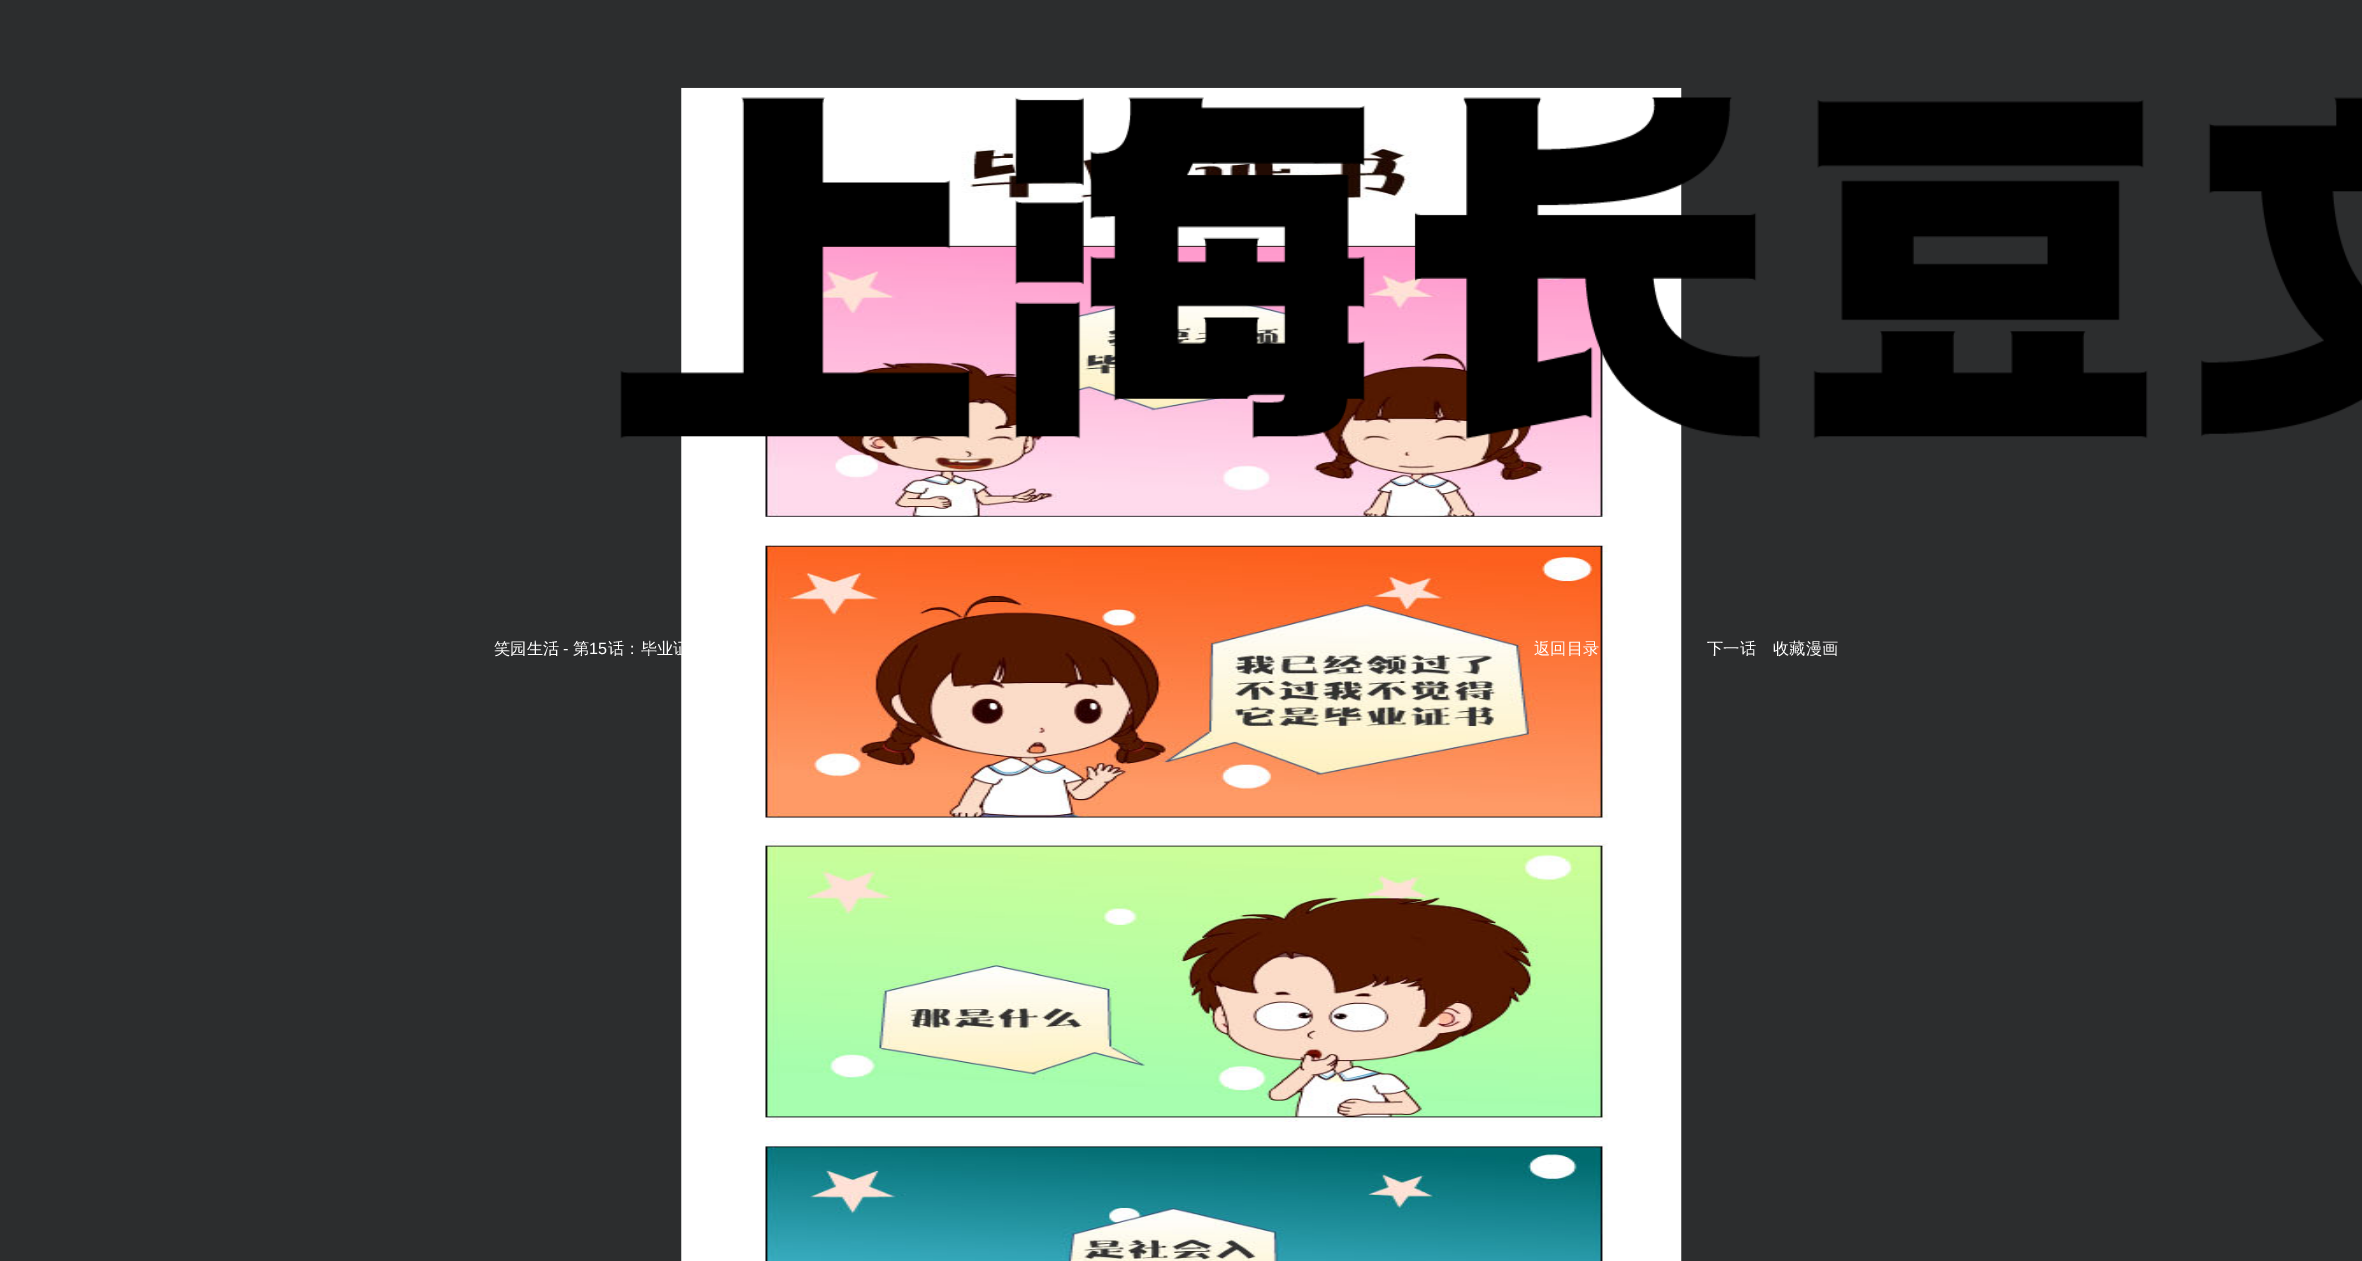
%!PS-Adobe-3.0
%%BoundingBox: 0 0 2362 1261
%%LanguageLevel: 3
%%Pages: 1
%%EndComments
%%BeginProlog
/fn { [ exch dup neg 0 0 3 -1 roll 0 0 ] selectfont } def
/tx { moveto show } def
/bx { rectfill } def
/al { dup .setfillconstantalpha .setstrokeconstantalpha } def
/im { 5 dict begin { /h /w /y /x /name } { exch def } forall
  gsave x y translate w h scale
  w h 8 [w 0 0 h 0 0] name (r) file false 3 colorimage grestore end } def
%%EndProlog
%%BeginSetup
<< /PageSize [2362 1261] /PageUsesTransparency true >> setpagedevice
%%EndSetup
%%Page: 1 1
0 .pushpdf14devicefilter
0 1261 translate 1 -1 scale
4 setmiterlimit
0.173 0.176 0.18 setrgbcolor
0 0 2362 1261 bx
(image0.raw) 681 87 1001 1174 im
0.9 al
681 87 1001 1 bx
1 al
(image1.raw) 620 97 1742 342 im
/WenQuanYiZenHei-Medium 16.25 fn
1 setgray
(笑园生活) 494 654 tx
/LiberationSans-Regular 16.25 fn
(-) 563 654 tx
/WenQuanYiZenHei-Medium 16.25 fn
(第) 573 654 tx
/LiberationSans-Regular 16.25 fn
(15) 589 654 tx
/WenQuanYiZenHei-Medium 16.25 fn
(话：毕业证) 608 654 tx
(返回目录) 1534 654 tx
(下一话) 1707 654 tx
(收藏漫画) 1773 654 tx
.poppdf14devicefilter showpage
%%EOF
